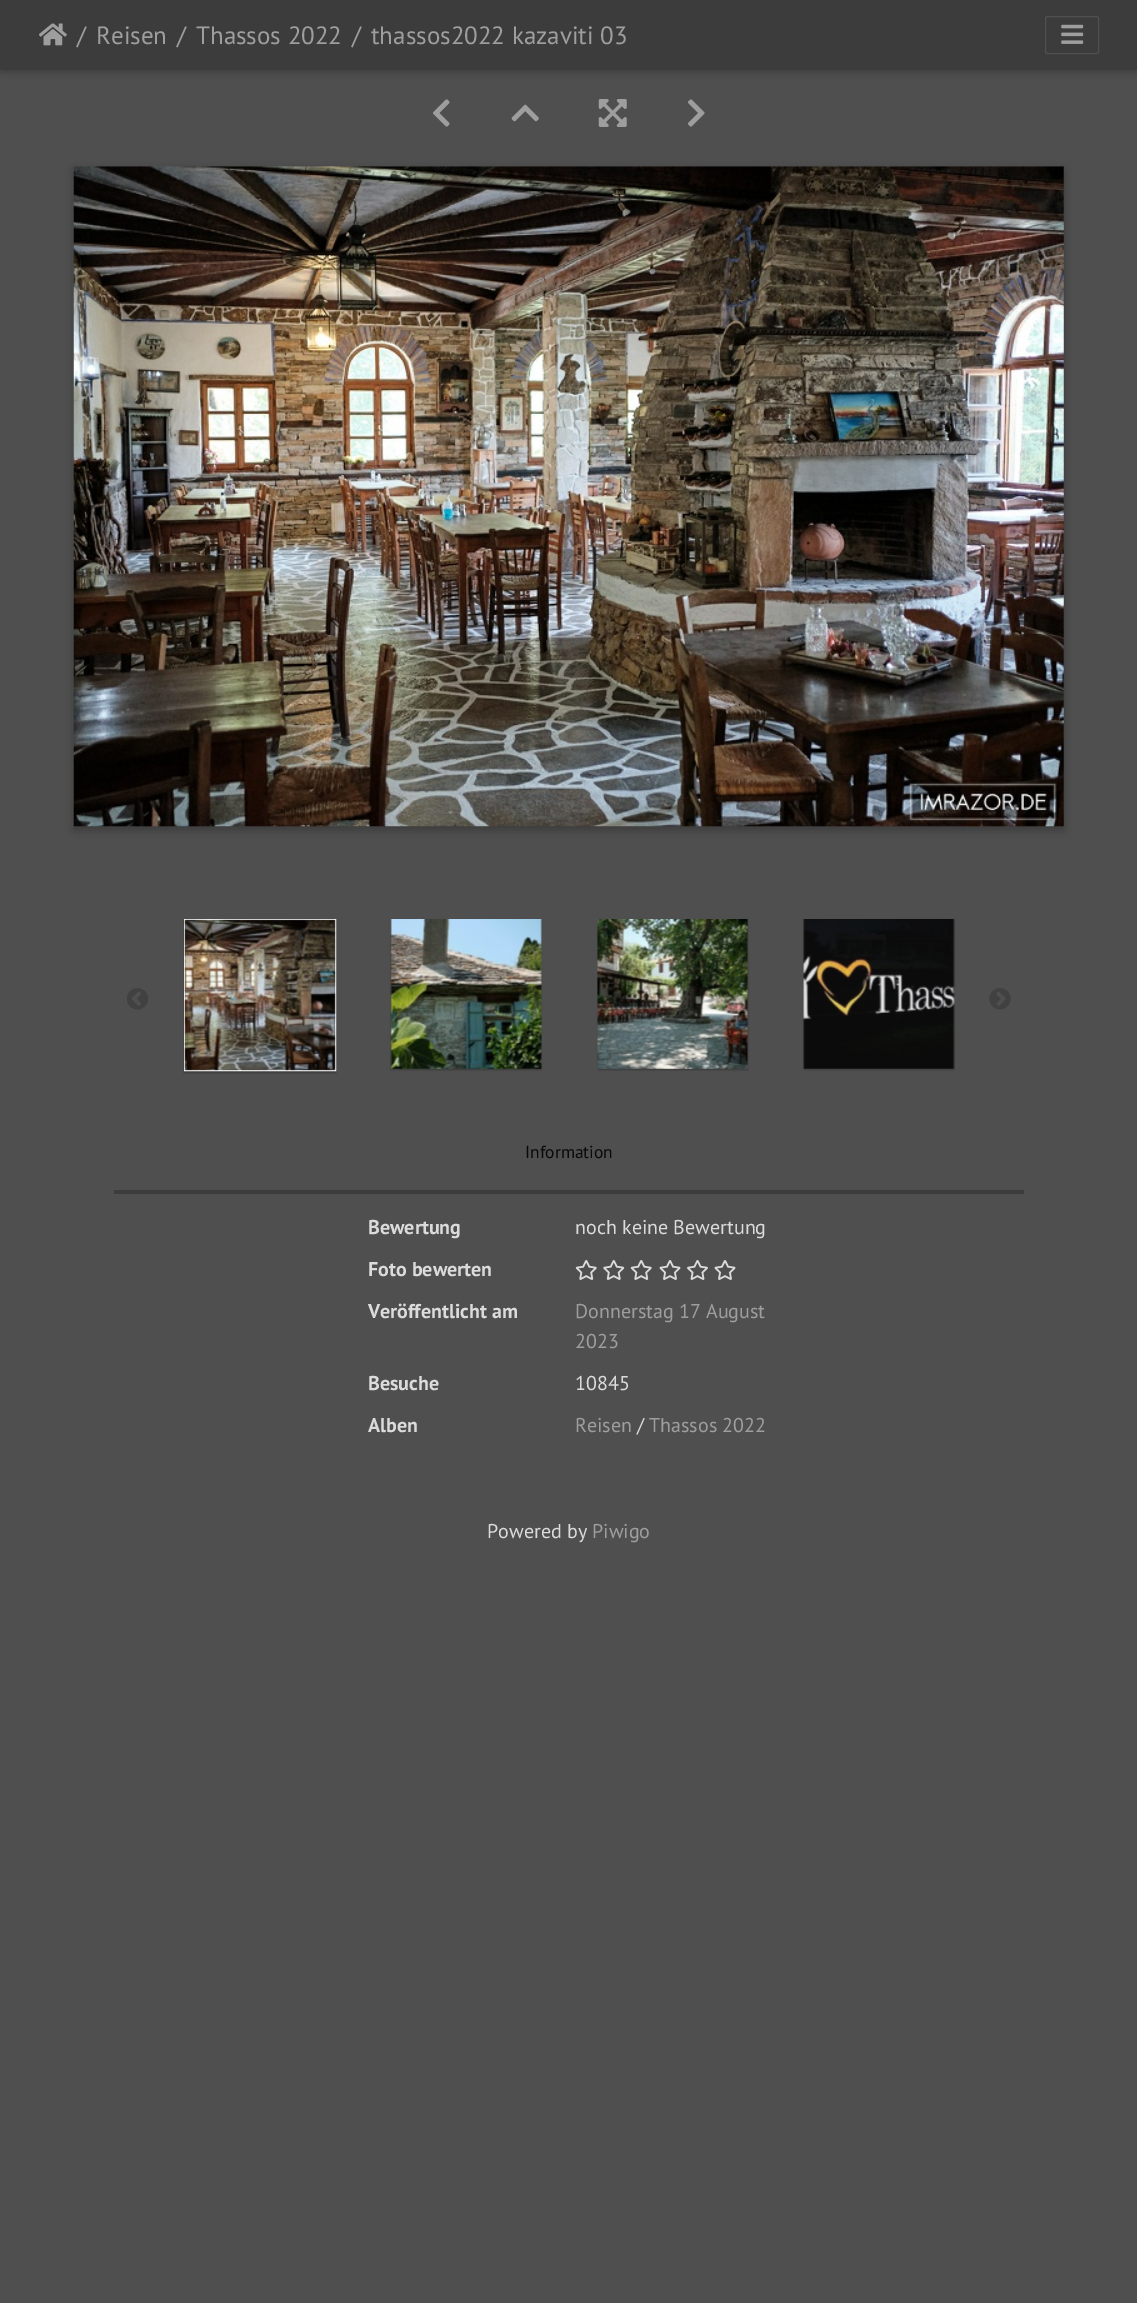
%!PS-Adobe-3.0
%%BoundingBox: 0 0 1137 2303
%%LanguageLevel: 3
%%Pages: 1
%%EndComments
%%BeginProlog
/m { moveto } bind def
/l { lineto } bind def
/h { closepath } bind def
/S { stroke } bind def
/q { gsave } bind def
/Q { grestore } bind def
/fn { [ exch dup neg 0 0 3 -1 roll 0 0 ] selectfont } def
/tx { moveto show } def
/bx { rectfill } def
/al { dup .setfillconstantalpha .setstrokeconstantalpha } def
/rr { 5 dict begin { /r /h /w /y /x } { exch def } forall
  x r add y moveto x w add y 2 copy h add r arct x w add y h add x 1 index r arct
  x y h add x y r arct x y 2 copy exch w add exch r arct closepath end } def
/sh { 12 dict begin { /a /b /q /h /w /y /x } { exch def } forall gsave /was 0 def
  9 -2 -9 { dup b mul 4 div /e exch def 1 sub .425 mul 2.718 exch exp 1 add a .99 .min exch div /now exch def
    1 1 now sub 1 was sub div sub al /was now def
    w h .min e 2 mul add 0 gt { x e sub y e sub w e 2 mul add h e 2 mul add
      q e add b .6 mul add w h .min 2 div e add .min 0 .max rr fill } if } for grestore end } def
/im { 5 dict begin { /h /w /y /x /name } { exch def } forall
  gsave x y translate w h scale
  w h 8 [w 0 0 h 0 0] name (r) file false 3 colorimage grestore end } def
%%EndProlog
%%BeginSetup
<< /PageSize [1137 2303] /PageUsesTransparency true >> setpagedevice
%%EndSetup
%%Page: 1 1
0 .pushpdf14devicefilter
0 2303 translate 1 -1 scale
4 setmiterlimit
0.31 setgray
0 0 1137 2303 bx
0 setgray
1 5 1135 68 0 3 0.2 sh
0.235 setgray
0 0 1137 70 bx
(image0.raw) 39 23 28 23 im
/PTSans-Regular 25 fn
0.62 setgray
(/) 77 44 tx
(Reisen) 96 44 tx
(/) 177 44 tx
(Thassos 2022) 196 44 tx
(/) 352 44 tx
(thassos2022 kazaviti 03) 371 44 tx
0.314 setgray
1045.5 16.5 53 37 2 rr S
(image1.raw) 1061 24 23 20 im
(image2.raw) 433 99 17 28 im
(image3.raw) 511 104 28 18 im
(image4.raw) 598 99 29 28 im
(image5.raw) 688 99 17 28 im
q
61 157 m 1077 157 l 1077 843 l 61 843 l h 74 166 m 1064 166 l 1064 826 l 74 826 l h eoclip newpath
0 setgray
74 170 990 660 0 4 0.23 sh
Q
(image6.raw) 73 166 991 661 im
(image7.raw) 127 988 21 22 im
0 setgray
184 920 152 153 0 1 0.24 sh
1 setgray
184.5 919.5 151 151 rectstroke
(image8.raw) 184 919 152 152 im
0 setgray
391 920 150 150 0 1 0.24 sh
(image9.raw) 390 919 152 150 im
598 920 150 150 0 1 0.24 sh
(image10.raw) 597 919 151 150 im
q
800 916 m 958 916 l 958 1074 l 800 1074 l h 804 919 m 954 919 l 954 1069 l 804 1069 l h eoclip newpath
0.043 setgray
804 920 150 150 0 1 0.24 sh
Q
(image11.raw) 803 919 152 150 im
(image12.raw) 989 988 22 22 im
0.235 setgray
114 1190 910 4 bx
/PTSans-Regular 17.5 fn
0.039 setgray
(Information) 525 1158 tx
/PTSans-Bold 20 fn
0.859 setgray
(Bewertung) 368 1234 tx
/PTSans-Regular 20 fn
(noch keine Bewertung) 575 1234 tx
/PTSans-Bold 20 fn
(Foto bewerten) 368 1276 tx
(image13.raw) 575 1260 22 20 im
(image14.raw) 603 1260 22 20 im
(image13.raw) 630 1260 22 20 im
(image15.raw) 659 1260 22 20 im
(image16.raw) 687 1260 21 20 im
(image15.raw) 714 1260 22 20 im
(Veröffentlicht am) 368 1318 tx
/PTSans-Regular 20 fn
0.62 setgray
(Donnerstag 17 August) 575 1318 tx
(2023) 575 1348 tx
/PTSans-Bold 20 fn
0.859 setgray
(Besuche) 368 1390 tx
/PTSans-Regular 20 fn
(10845) 575 1390 tx
/PTSans-Bold 20 fn
(Alben) 368 1432 tx
/PTSans-Regular 20 fn
0.62 setgray
(Reisen) 575 1432 tx
0.859 setgray
(/) 637 1432 tx
0.62 setgray
(Thassos 2022) 649 1432 tx
0.859 setgray
(Powered by) 487 1538 tx
0.62 setgray
(Piwigo) 592 1538 tx
.poppdf14devicefilter showpage
%%EOF
